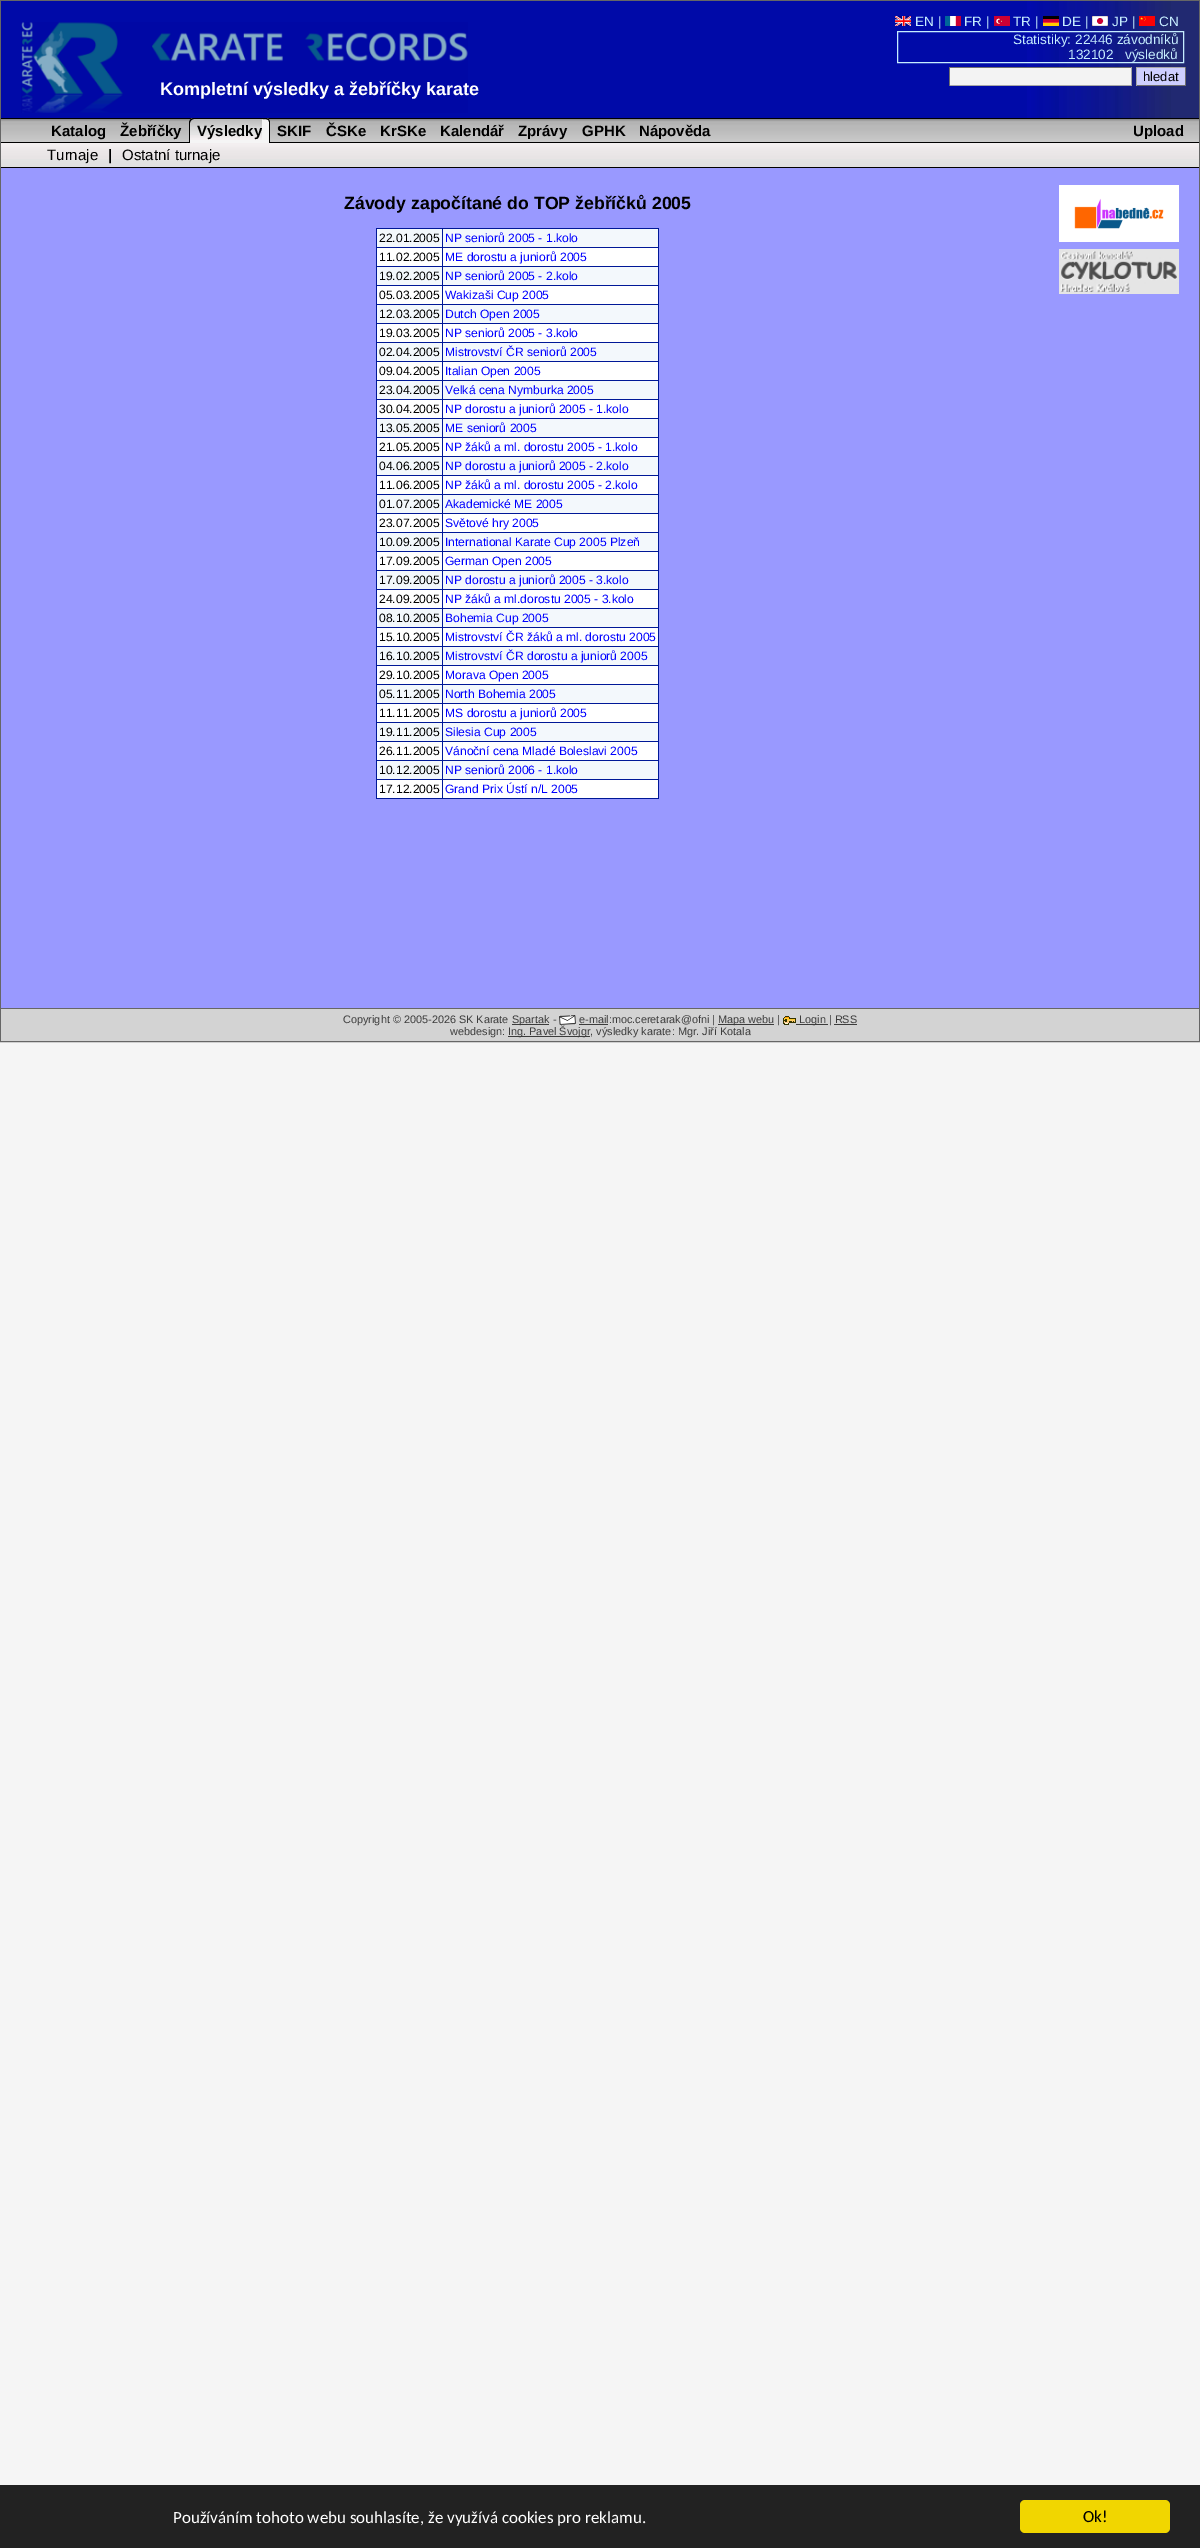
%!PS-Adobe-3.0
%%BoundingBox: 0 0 1200 2548
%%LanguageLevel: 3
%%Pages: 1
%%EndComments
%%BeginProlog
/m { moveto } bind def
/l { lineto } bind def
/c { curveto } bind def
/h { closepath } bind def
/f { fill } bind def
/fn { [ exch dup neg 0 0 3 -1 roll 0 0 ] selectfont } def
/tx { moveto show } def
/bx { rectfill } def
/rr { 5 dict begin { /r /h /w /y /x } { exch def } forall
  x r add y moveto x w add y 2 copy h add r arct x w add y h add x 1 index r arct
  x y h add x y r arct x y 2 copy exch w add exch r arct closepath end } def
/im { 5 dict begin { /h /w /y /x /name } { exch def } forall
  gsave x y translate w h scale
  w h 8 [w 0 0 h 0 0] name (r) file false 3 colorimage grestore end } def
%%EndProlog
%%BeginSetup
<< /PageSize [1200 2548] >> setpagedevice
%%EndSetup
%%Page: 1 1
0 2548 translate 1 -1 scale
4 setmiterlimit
0.961 setgray
0 0 1200 2548 bx
0.4 setgray
0.5 0.5 1199 1041 rectstroke
0 0.039 0.659 setrgbcolor
1 1 1026 117 bx
(image0.raw) 1027 1 172 117 im
(image1.raw) 21 22 447 91 im
(image2.raw) 895 16 16 10 im
/LiberationSans-Regular 13.6 fn
0.776 0.929 1 setrgbcolor
(EN |) 915 26 tx
(image3.raw) 945 16 16 10 im
(FR |) 964 26 tx
(image4.raw) 994 16 16 10 im
(TR |) 1013 26 tx
(image5.raw) 1043 16 16 10 im
(DE |) 1062 26 tx
(image6.raw) 1092 16 16 10 im
(JP |) 1112 26 tx
(image7.raw) 1139 16 16 10 im
(CN) 1159 26 tx
897.5 31.5 286 31 rectstroke
(Statistiky: 22446 závodníků) 1013 44 tx
(132102   výsledků) 1068 59 tx
0.953 setgray
950 68 181 17 bx
0.435 setgray
949 67 183 1 bx
0.651 setgray
1131 67 1 19 bx
949 85 183 1 bx
0.435 setgray
949 67 1 19 bx
0.808 0.812 1 setrgbcolor
1137 68 48 17 bx
0.651 setgray
1136 67 50 1 bx
0.435 setgray
1185 67 1 19 bx
1136 85 50 1 bx
0.651 setgray
1136 67 1 19 bx
/LiberationSans-Regular 13 fn
0 setgray
(hledat) 1143 81 tx
/LiberationSans-Bold 18 fn
1 setgray
(Kompletní výsledky a žebříčky karate) 160 95 tx
(image8.raw) 1 119 1198 23 im
0 setgray
1 118 1198 1 bx
1 167 1198 1 bx
/LiberationSans-Bold 15 fn
(Katalog) 51 136 tx
(Žebříčky) 120 136 tx
1 142 1198 1 bx
0.961 setgray
194 118 m 262 118 l 262 143 l 189 143 l 189 123 l 189 120 191 118 194 118 c h f
(image9.raw) 189 119 81 21 im
0 setgray
(ČSKe) 326 136 tx
(Kalendář) 440 136 tx
(Nápověda) 639 136 tx
194 118 m 262 118 l 262 143 l 189 143 l 189 123 l 189 120 191 118 194 118 c h 194 119 m 262 119 l 262 143 l 190 143 l 190 123 l 190 121 192 119 194 119 c h eofill
(Výsledky) 197 136 tx
0.961 setgray
262 118 m 266 118 l 268 118 270 120 270 122 c 270 143 l 262 143 l h f
0 setgray
262 118 m 266 118 l 268 118 270 120 270 122 c 270 143 l 262 143 l h 262 119 m 270.5 119 269 120 269 129 c 269 143 l 262 143 l h eofill
(SKIF) 277 136 tx
(KrSKe) 380 136 tx
(Zprávy) 518 136 tx
(GPHK) 582 136 tx
(Upload) 1133 136 tx
(image10.raw) 1 143 1198 24 im
/LiberationSans-Regular 15 fn
(Turnaje) 47 160 tx
/LiberationSans-Bold 15 fn
(|) 108 160 tx
/LiberationSans-Regular 15 fn
(Ostatní turnaje) 122 160 tx
0.6 0.6 1 setrgbcolor
1 168 1198 840 bx
/LiberationSans-Bold 17.7 fn
0 setgray
(Závody započítané do TOP žebříčků 2005) 344 209 tx
(image11.raw) 1059 185 120 57 im
(image12.raw) 1059 249 120 45 im
0.953 0.973 0.988 setrgbcolor
377 229 281 18 bx
0 0.094 0.592 setrgbcolor
442 228 217 1 bx
442 247 217 1 bx
1 setgray
377 248 281 18 bx
0 0.094 0.592 setrgbcolor
442 266 217 1 bx
0.953 0.973 0.988 setrgbcolor
377 267 281 18 bx
0 0.094 0.592 setrgbcolor
442 285 217 1 bx
1 setgray
377 286 281 18 bx
0 0.094 0.592 setrgbcolor
442 304 217 1 bx
0.953 0.973 0.988 setrgbcolor
377 305 281 18 bx
0 0.094 0.592 setrgbcolor
442 323 217 1 bx
1 setgray
377 324 281 18 bx
0 0.094 0.592 setrgbcolor
442 342 217 1 bx
0.953 0.973 0.988 setrgbcolor
377 343 281 18 bx
0 0.094 0.592 setrgbcolor
442 361 217 1 bx
1 setgray
377 362 281 18 bx
0 0.094 0.592 setrgbcolor
442 380 217 1 bx
0.953 0.973 0.988 setrgbcolor
377 381 281 18 bx
0 0.094 0.592 setrgbcolor
442 399 217 1 bx
1 setgray
377 400 281 18 bx
0 0.094 0.592 setrgbcolor
442 418 217 1 bx
0.953 0.973 0.988 setrgbcolor
377 419 281 18 bx
0 0.094 0.592 setrgbcolor
442 437 217 1 bx
1 setgray
377 438 281 18 bx
0 0.094 0.592 setrgbcolor
442 456 217 1 bx
0.953 0.973 0.988 setrgbcolor
377 457 281 18 bx
0 0.094 0.592 setrgbcolor
442 475 217 1 bx
1 setgray
377 476 281 18 bx
0 0.094 0.592 setrgbcolor
442 494 217 1 bx
0.953 0.973 0.988 setrgbcolor
377 495 281 18 bx
0 0.094 0.592 setrgbcolor
442 513 217 1 bx
1 setgray
377 514 281 18 bx
0 0.094 0.592 setrgbcolor
442 532 217 1 bx
0.953 0.973 0.988 setrgbcolor
377 533 281 18 bx
0 0.094 0.592 setrgbcolor
442 551 217 1 bx
1 setgray
377 552 281 18 bx
0 0.094 0.592 setrgbcolor
442 570 217 1 bx
0.953 0.973 0.988 setrgbcolor
377 571 281 18 bx
0 0.094 0.592 setrgbcolor
442 589 217 1 bx
1 setgray
377 590 281 18 bx
0 0.094 0.592 setrgbcolor
442 608 217 1 bx
0.953 0.973 0.988 setrgbcolor
377 609 281 18 bx
0 0.094 0.592 setrgbcolor
442 627 217 1 bx
1 setgray
377 628 281 18 bx
0 0.094 0.592 setrgbcolor
442 646 217 1 bx
0.953 0.973 0.988 setrgbcolor
377 647 281 18 bx
0 0.094 0.592 setrgbcolor
442 665 217 1 bx
1 setgray
377 666 281 18 bx
0 0.094 0.592 setrgbcolor
442 684 217 1 bx
0.953 0.973 0.988 setrgbcolor
377 685 281 18 bx
0 0.094 0.592 setrgbcolor
442 703 217 1 bx
1 setgray
377 704 281 18 bx
0 0.094 0.592 setrgbcolor
442 722 217 1 bx
0.953 0.973 0.988 setrgbcolor
377 723 281 18 bx
0 0.094 0.592 setrgbcolor
442 741 217 1 bx
1 setgray
377 742 281 18 bx
0 0.094 0.592 setrgbcolor
442 760 217 1 bx
0.953 0.973 0.988 setrgbcolor
377 761 281 18 bx
0 0.094 0.592 setrgbcolor
442 779 217 1 bx
1 setgray
377 780 281 18 bx
0 0.094 0.592 setrgbcolor
658 779 1 20 bx
442 798 217 1 bx
442 779 1 20 bx
376 779 67 1 bx
442 760 1 20 bx
376 760 67 1 bx
442 741 1 20 bx
376 741 67 1 bx
442 722 1 20 bx
376 722 67 1 bx
442 703 1 20 bx
376 703 67 1 bx
442 684 1 20 bx
376 684 67 1 bx
442 665 1 20 bx
376 665 67 1 bx
442 646 1 20 bx
376 646 67 1 bx
442 627 1 20 bx
376 627 67 1 bx
442 608 1 20 bx
376 608 67 1 bx
442 589 1 20 bx
376 589 67 1 bx
442 570 1 20 bx
376 570 67 1 bx
442 551 1 20 bx
376 551 67 1 bx
442 532 1 20 bx
376 532 67 1 bx
442 513 1 20 bx
376 513 67 1 bx
442 494 1 20 bx
376 494 67 1 bx
442 475 1 20 bx
376 475 67 1 bx
442 456 1 20 bx
376 456 67 1 bx
442 437 1 20 bx
376 437 67 1 bx
442 418 1 20 bx
376 418 67 1 bx
442 399 1 20 bx
376 399 67 1 bx
442 380 1 20 bx
376 380 67 1 bx
442 361 1 20 bx
376 361 67 1 bx
442 342 1 20 bx
376 342 67 1 bx
442 323 1 20 bx
376 323 67 1 bx
442 304 1 20 bx
376 304 67 1 bx
442 285 1 20 bx
376 285 67 1 bx
442 266 1 20 bx
376 266 67 1 bx
442 247 1 20 bx
376 247 67 1 bx
442 228 1 20 bx
376 228 67 1 bx
376 798 67 1 bx
376 779 1 20 bx
376 760 1 20 bx
376 741 1 20 bx
376 722 1 20 bx
376 703 1 20 bx
376 684 1 20 bx
376 665 1 20 bx
376 646 1 20 bx
376 627 1 20 bx
376 608 1 20 bx
376 589 1 20 bx
376 570 1 20 bx
376 551 1 20 bx
376 532 1 20 bx
376 513 1 20 bx
376 494 1 20 bx
376 475 1 20 bx
376 456 1 20 bx
376 437 1 20 bx
376 418 1 20 bx
376 399 1 20 bx
376 380 1 20 bx
376 361 1 20 bx
376 342 1 20 bx
376 323 1 20 bx
376 304 1 20 bx
376 285 1 20 bx
376 266 1 20 bx
376 247 1 20 bx
376 228 1 20 bx
/LiberationSans-Regular 12.1 fn
0 setgray
(22.01.2005) 379 242 tx
0 0.094 0.592 setrgbcolor
658 760 1 20 bx
658 741 1 20 bx
658 722 1 20 bx
658 703 1 20 bx
658 684 1 20 bx
658 665 1 20 bx
658 646 1 20 bx
658 627 1 20 bx
658 608 1 20 bx
658 589 1 20 bx
658 570 1 20 bx
658 551 1 20 bx
658 532 1 20 bx
658 513 1 20 bx
658 494 1 20 bx
658 475 1 20 bx
658 456 1 20 bx
658 437 1 20 bx
658 418 1 20 bx
658 399 1 20 bx
658 380 1 20 bx
658 361 1 20 bx
658 342 1 20 bx
658 323 1 20 bx
658 304 1 20 bx
658 285 1 20 bx
658 266 1 20 bx
658 247 1 20 bx
658 228 1 20 bx
0 0 1 setrgbcolor
(NP seniorů 2005 - 1.kolo) 445 242 tx
0 setgray
(11.02.2005) 379 261 tx
0 0 1 setrgbcolor
(ME dorostu a juniorů 2005) 445 261 tx
0 setgray
(19.02.2005) 379 280 tx
0 0 1 setrgbcolor
(NP seniorů 2005 - 2.kolo) 445 280 tx
0 setgray
(05.03.2005) 379 299 tx
0 0 1 setrgbcolor
(Wakizaši Cup 2005) 445 299 tx
0 setgray
(12.03.2005) 379 318 tx
0 0 1 setrgbcolor
(Dutch Open 2005) 445 318 tx
0 setgray
(19.03.2005) 379 337 tx
0 0 1 setrgbcolor
(NP seniorů 2005 - 3.kolo) 445 337 tx
0 setgray
(02.04.2005) 379 356 tx
0 0 1 setrgbcolor
(Mistrovství ČR seniorů 2005) 445 356 tx
0 setgray
(09.04.2005) 379 375 tx
0 0 1 setrgbcolor
(Italian Open 2005) 445 375 tx
0 setgray
(23.04.2005) 379 394 tx
0 0 1 setrgbcolor
(Velká cena Nymburka 2005) 445 394 tx
0 setgray
(30.04.2005) 379 413 tx
0 0 1 setrgbcolor
(NP dorostu a juniorů 2005 - 1.kolo) 445 413 tx
0 setgray
(13.05.2005) 379 432 tx
0 0 1 setrgbcolor
(ME seniorů 2005) 445 432 tx
0 setgray
(21.05.2005) 379 451 tx
0 0 1 setrgbcolor
(NP žáků a ml. dorostu 2005 - 1.kolo) 445 451 tx
0 setgray
(04.06.2005) 379 470 tx
0 0 1 setrgbcolor
(NP dorostu a juniorů 2005 - 2.kolo) 445 470 tx
0 setgray
(11.06.2005) 379 489 tx
0 0 1 setrgbcolor
(NP žáků a ml. dorostu 2005 - 2.kolo) 445 489 tx
0 setgray
(01.07.2005) 379 508 tx
0 0 1 setrgbcolor
(Akademické ME 2005) 445 508 tx
0 setgray
(23.07.2005) 379 527 tx
0 0 1 setrgbcolor
(Světové hry 2005) 445 527 tx
0 setgray
(10.09.2005) 379 546 tx
0 0 1 setrgbcolor
(International Karate Cup 2005 Plzeň) 445 546 tx
0 setgray
(17.09.2005) 379 565 tx
0 0 1 setrgbcolor
(German Open 2005) 445 565 tx
0 setgray
(17.09.2005) 379 584 tx
0 0 1 setrgbcolor
(NP dorostu a juniorů 2005 - 3.kolo) 445 584 tx
0 setgray
(24.09.2005) 379 603 tx
0 0 1 setrgbcolor
(NP žáků a ml.dorostu 2005 - 3.kolo) 445 603 tx
0 setgray
(08.10.2005) 379 622 tx
0 0 1 setrgbcolor
(Bohemia Cup 2005) 445 622 tx
0 setgray
(15.10.2005) 379 641 tx
0 0 1 setrgbcolor
(Mistrovství ČR žáků a ml. dorostu 2005) 445 641 tx
0 setgray
(16.10.2005) 379 660 tx
0 0 1 setrgbcolor
(Mistrovství ČR dorostu a juniorů 2005) 445 660 tx
0 setgray
(29.10.2005) 379 679 tx
0 0 1 setrgbcolor
(Morava Open 2005) 445 679 tx
0 setgray
(05.11.2005) 379 698 tx
0 0 1 setrgbcolor
(North Bohemia 2005) 445 698 tx
0 setgray
(11.11.2005) 379 717 tx
0 0 1 setrgbcolor
(MS dorostu a juniorů 2005) 445 717 tx
0 setgray
(19.11.2005) 379 736 tx
0 0 1 setrgbcolor
(Silesia Cup 2005) 445 736 tx
0 setgray
(26.11.2005) 379 755 tx
0 0 1 setrgbcolor
(Vánoční cena Mladé Boleslavi 2005) 445 755 tx
0 setgray
(10.12.2005) 379 774 tx
0 0 1 setrgbcolor
(NP seniorů 2006 - 1.kolo) 445 774 tx
0 setgray
(17.12.2005) 379 793 tx
0 0 1 setrgbcolor
(Grand Prix Ústí n/L 2005) 445 793 tx
0.827 setgray
1 1009 1198 32 bx
0.4 setgray
1 1008 1198 1 bx
/LiberationSans-Regular 10.9 fn
0.235 setgray
(Copyright © 2005-2026 SK Karate) 343 1023 tx
512 1024 37 1 bx
(Spartak -) 512 1023 tx
(image13.raw) 559 1015 17 10 im
579 1024 29 1 bx
(e-mail:moc.ceretarak@ofni |) 579 1023 tx
718 1024 56 1 bx
(Mapa webu |) 718 1023 tx
(image14.raw) 783 1016 13 9 im
796 1024 32 1 bx
(Login | RSS) 799 1023 tx
834 1024 23 1 bx
(webdesign:) 450 1035 tx
508 1036 82 1 bx
(Ing. Pavel Švojgr, výsledky karate: Mgr. Jiří Kotala) 508 1035 tx
0.133 setgray
0 2485 1200 63 bx
/Carlito-Regular 17 fn
1 setgray
(Používáním tohoto webu souhlasíte, že využívá cookies pro reklamu.) 173 2523 tx
0.945 0.839 0 setrgbcolor
1020 2500 150 33 5 rr f
0 setgray
(Ok!) 1083 2522 tx
showpage
%%EOF
